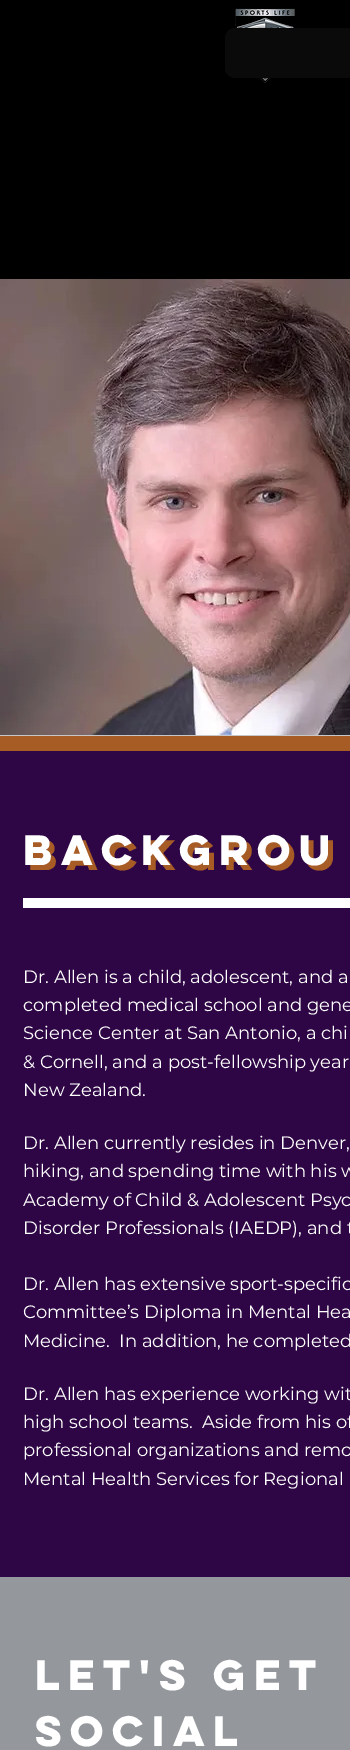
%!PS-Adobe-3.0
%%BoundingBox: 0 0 350 1750
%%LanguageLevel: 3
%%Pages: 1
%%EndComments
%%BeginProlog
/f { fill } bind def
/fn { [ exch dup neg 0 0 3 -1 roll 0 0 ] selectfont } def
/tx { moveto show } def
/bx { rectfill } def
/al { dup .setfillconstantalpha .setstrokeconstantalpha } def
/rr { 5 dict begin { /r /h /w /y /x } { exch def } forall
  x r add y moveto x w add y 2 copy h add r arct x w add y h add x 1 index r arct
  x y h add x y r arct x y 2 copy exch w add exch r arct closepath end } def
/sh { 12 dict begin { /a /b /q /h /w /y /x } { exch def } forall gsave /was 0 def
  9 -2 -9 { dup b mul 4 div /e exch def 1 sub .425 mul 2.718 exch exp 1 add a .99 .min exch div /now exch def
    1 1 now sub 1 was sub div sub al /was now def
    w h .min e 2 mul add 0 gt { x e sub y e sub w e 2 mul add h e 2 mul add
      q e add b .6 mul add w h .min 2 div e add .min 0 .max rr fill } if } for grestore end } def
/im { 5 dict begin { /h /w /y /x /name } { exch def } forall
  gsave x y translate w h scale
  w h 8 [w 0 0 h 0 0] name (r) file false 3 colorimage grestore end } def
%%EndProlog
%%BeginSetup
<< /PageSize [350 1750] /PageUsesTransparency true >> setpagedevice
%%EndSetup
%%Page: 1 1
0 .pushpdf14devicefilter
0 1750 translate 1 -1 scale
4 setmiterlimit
0.655 0.361 0.149 setrgbcolor
0 0 350 1750 bx
0 setgray
0 0 350 279 bx
(image0.raw) 235 8 60 75 im
225 29 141 50 10 2 0.6 sh
0.039 setgray
225 28 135 50 10 rr f
(image1.raw) 0 279 350 456 im
0.78 setgray
0 735 350 1 bx
0.184 0.024 0.271 setrgbcolor
0 751 350 826 bx
/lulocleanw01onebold-Bold 38 fn
0.655 0.361 0.149 setrgbcolor
(Backgrou) 28 870 tx
1 setgray
(Backgrou) 23 865 tx
23 898 327 10 bx
/Montserrat-Regular 18 fn
(Dr. Allen is a child, adolescent, and a) 23 983 tx
(completed medical school and gene) 23 1011 tx
(Science Center at San Antonio, a chi) 23 1039 tx
(& Cornell, and a post-fellowship year) 23 1068 tx
(New Zealand.) 23 1096 tx
(Dr. Allen currently resides in Denver,) 23 1149 tx
(hiking, and spending time with his w) 23 1177 tx
(Academy of Child & Adolescent Psyc) 23 1206 tx
(Disorder Professionals \(IAEDP\), and t) 23 1234 tx
(Dr. Allen has extensive sport-specific) 23 1290 tx
(Committee’s Diploma in Mental Hea) 23 1318 tx
(Medicine.  In addition, he completed) 23 1347 tx
(Dr. Allen has experience working wit) 23 1400 tx
(high school teams.  Aside from his of) 23 1428 tx
(professional organizations and remo) 23 1456 tx
(Mental Health Services for Regional) 23 1485 tx
0.58 0.592 0.612 setrgbcolor
0 1577 350 173 bx
/lulocleanw01onebold-Bold 38 fn
1 setgray
(Let's Get) 35 1690 tx
(Social) 35 1746 tx
.poppdf14devicefilter showpage
%%EOF
